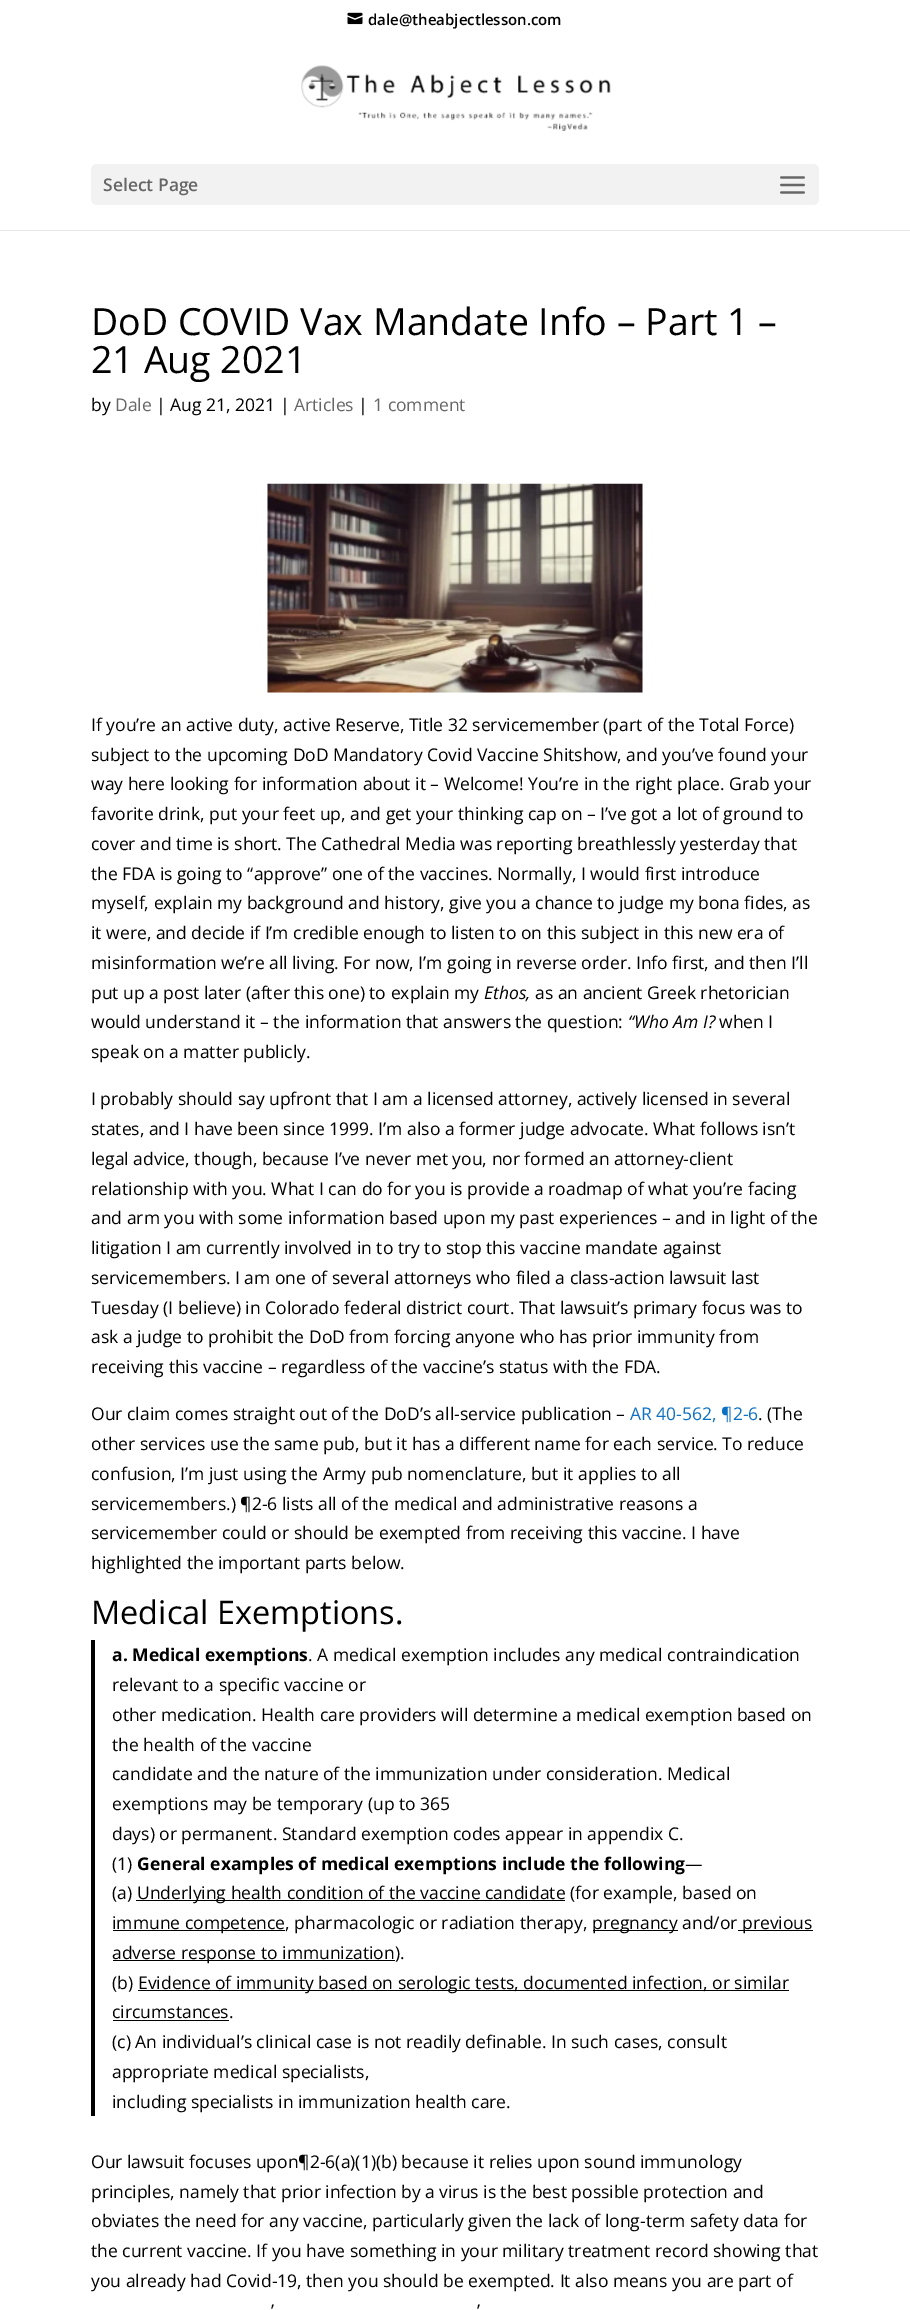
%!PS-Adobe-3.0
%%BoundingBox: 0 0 910 2310
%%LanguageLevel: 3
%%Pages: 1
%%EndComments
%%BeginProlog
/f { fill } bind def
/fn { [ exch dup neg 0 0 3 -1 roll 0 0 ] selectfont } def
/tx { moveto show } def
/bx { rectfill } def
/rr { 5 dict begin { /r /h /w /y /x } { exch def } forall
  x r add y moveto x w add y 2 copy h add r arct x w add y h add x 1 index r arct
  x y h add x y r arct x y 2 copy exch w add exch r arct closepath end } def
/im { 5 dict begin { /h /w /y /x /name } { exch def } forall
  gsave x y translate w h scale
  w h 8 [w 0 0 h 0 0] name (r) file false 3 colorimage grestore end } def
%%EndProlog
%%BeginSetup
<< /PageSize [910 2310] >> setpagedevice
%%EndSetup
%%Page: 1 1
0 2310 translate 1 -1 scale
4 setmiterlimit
1 setgray
0 0 910 2310 bx
(image0.raw) 347 12 16 13 im
/OpenSans-SemiBold 15 fn
0 setgray
(dale@theabjectlesson.com) 368 25 tx
0.902 setgray
0 230 910 1 bx
(image1.raw) 301 65 310 66 im
0.949 setgray
91 164 728 41 6 rr f
/OpenSans-SemiBold 17.5 fn
0.4 setgray
(Select Page) 103 191 tx
(image2.raw) 780 176 25 18 im
/OpenSans-Regular 37.5 fn
0 setgray
(DoD COVID Vax Mandate Info – Part 1 –) 91 335 tx
(21 Aug 2021) 91 373 tx
/OpenSans-Regular 17.5 fn
(by) 91 411 tx
0.4 setgray
(Dale) 115 411 tx
0 setgray
(| Aug 21, 2021 |) 156 411 tx
0.4 setgray
(Articles) 294 411 tx
0 setgray
(|) 358 411 tx
0.4 setgray
(1 comment) 373 411 tx
(image3.raw) 267 483 376 210 im
0 setgray
(If you’re an active duty, active Reserve, Title 32 servicemember \(part of the Total Force\)) 91 731 tx
(subject to the upcoming DoD Mandatory Covid Vaccine Shitshow, and you’ve found your) 91 761 tx
(way here looking for information about it – Welcome! You’re in the right place. Grab your) 91 790 tx
(favorite drink, put your feet up, and get your thinking cap on – I’ve got a lot of ground to) 91 820 tx
(cover and time is short. The Cathedral Media was reporting breathlessly yesterday that) 91 850 tx
(the FDA is going to “approve” one of the vaccines. Normally, I would first introduce) 91 880 tx
(myself, explain my background and history, give you a chance to judge my bona fides, as) 91 909 tx
(it were, and decide if I’m credible enough to listen to on this subject in this new era of) 91 939 tx
(misinformation we’re all living. For now, I’m going in reverse order. Info first, and then I’ll) 91 969 tx
(put up a post later \(after this one\) to explain my) 91 999 tx
/OpenSans-Italic 17.5 fn
(Ethos,) 484 999 tx
/OpenSans-Regular 17.5 fn
(as an ancient Greek rhetorician) 535 999 tx
(would understand it – the information that answers the question:) 91 1028 tx
/OpenSans-Italic 17.5 fn
(“Who Am I?) 628 1028 tx
/OpenSans-Regular 17.5 fn
(when I) 719 1028 tx
(speak on a matter publicly.) 91 1058 tx
(I probably should say upfront that I am a licensed attorney, actively licensed in several) 91 1105 tx
(states, and I have been since 1999. I’m also a former judge advocate. What follows isn’t) 91 1135 tx
(legal advice, though, because I’ve never met you, nor formed an attorney-client) 91 1165 tx
(relationship with you. What I can do for you is provide a roadmap of what you’re facing) 91 1195 tx
(and arm you with some information based upon my past experiences – and in light of the) 91 1224 tx
(litigation I am currently involved in to try to stop this vaccine mandate against) 91 1254 tx
(servicemembers. I am one of several attorneys who filed a class-action lawsuit last) 91 1284 tx
(Tuesday \(I believe\) in Colorado federal district court. That lawsuit’s primary focus was to) 91 1314 tx
(ask a judge to prohibit the DoD from forcing anyone who has prior immunity from) 91 1343 tx
(receiving this vaccine – regardless of the vaccine’s status with the FDA.) 91 1373 tx
(Our claim comes straight out of the DoD’s all-service publication –) 91 1420 tx
0.047 0.443 0.765 setrgbcolor
(AR 40-562, ¶2-6) 630 1420 tx
0 setgray
(. \(The) 758 1420 tx
(other services use the same pub, but it has a different name for each service. To reduce) 91 1450 tx
(confusion, I’m just using the Army pub nomenclature, but it applies to all) 91 1480 tx
(servicemembers.\) ¶2-6 lists all of the medical and administrative reasons a) 91 1510 tx
(servicemember could or should be exempted from receiving this vaccine. I have) 91 1539 tx
(highlighted the important parts below.) 91 1569 tx
/OpenSans-Regular 32.5 fn
(Medical Exemptions.) 91 1624 tx
91 1640 4 476 bx
/OpenSans-Bold 17.5 fn
(a. Medical exemptions) 112 1661 tx
/OpenSans-Regular 17.5 fn
(. A medical exemption includes any medical contraindication) 308 1661 tx
(relevant to a specific vaccine or) 112 1691 tx
(other medication. Health care providers will determine a medical exemption based on) 112 1721 tx
(the health of the vaccine) 112 1751 tx
(candidate and the nature of the immunization under consideration. Medical) 112 1780 tx
(exemptions may be temporary \(up to 365) 112 1810 tx
(days\) or permanent. Standard exemption codes appear in appendix C.) 112 1840 tx
(\(1\)) 112 1870 tx
/OpenSans-Bold 17.5 fn
(General examples of medical exemptions include the following) 137 1870 tx
/OpenSans-Regular 17.5 fn
(—) 685 1870 tx
(\(a\)) 112 1899 tx
136 1900 429 1 bx
(Underlying health condition of the vaccine candidate \(for example, based on) 137 1899 tx
113 1930 172 1 bx
(immune competence, pharmacologic or radiation therapy,) 112 1929 tx
593 1930 85 1 bx
(pregnancy and/or) 592 1929 tx
738 1930 75 1 bx
(previous) 742 1929 tx
113 1960 282 1 bx
(adverse response to immunization\).) 112 1959 tx
(\(b\)) 112 1989 tx
138 1990 651 1 bx
(Evidence of immunity based on serologic tests, documented infection, or similar) 138 1989 tx
(circumstances.) 112 2018 tx
113 2020 116 1 bx
(\(c\) An individual’s clinical case is not readily definable. In such cases, consult) 112 2048 tx
(appropriate medical specialists,) 112 2078 tx
(including specialists in immunization health care.) 112 2108 tx
(Our lawsuit focuses upon¶2-6\(a\)\(1\)\(b\) because it relies upon sound immunology) 91 2168 tx
(principles, namely that prior infection by a virus is the best possible protection and) 91 2198 tx
(obviates the need for any vaccine, particularly given the lack of long-term safety data for) 91 2227 tx
(the current vaccine. If you have something in your military treatment record showing that) 91 2257 tx
(you already had Covid-19, then you should be exempted. It also means you are part of) 91 2287 tx
(’) 271 2317 tx
(’) 477 2317 tx
showpage
%%EOF
